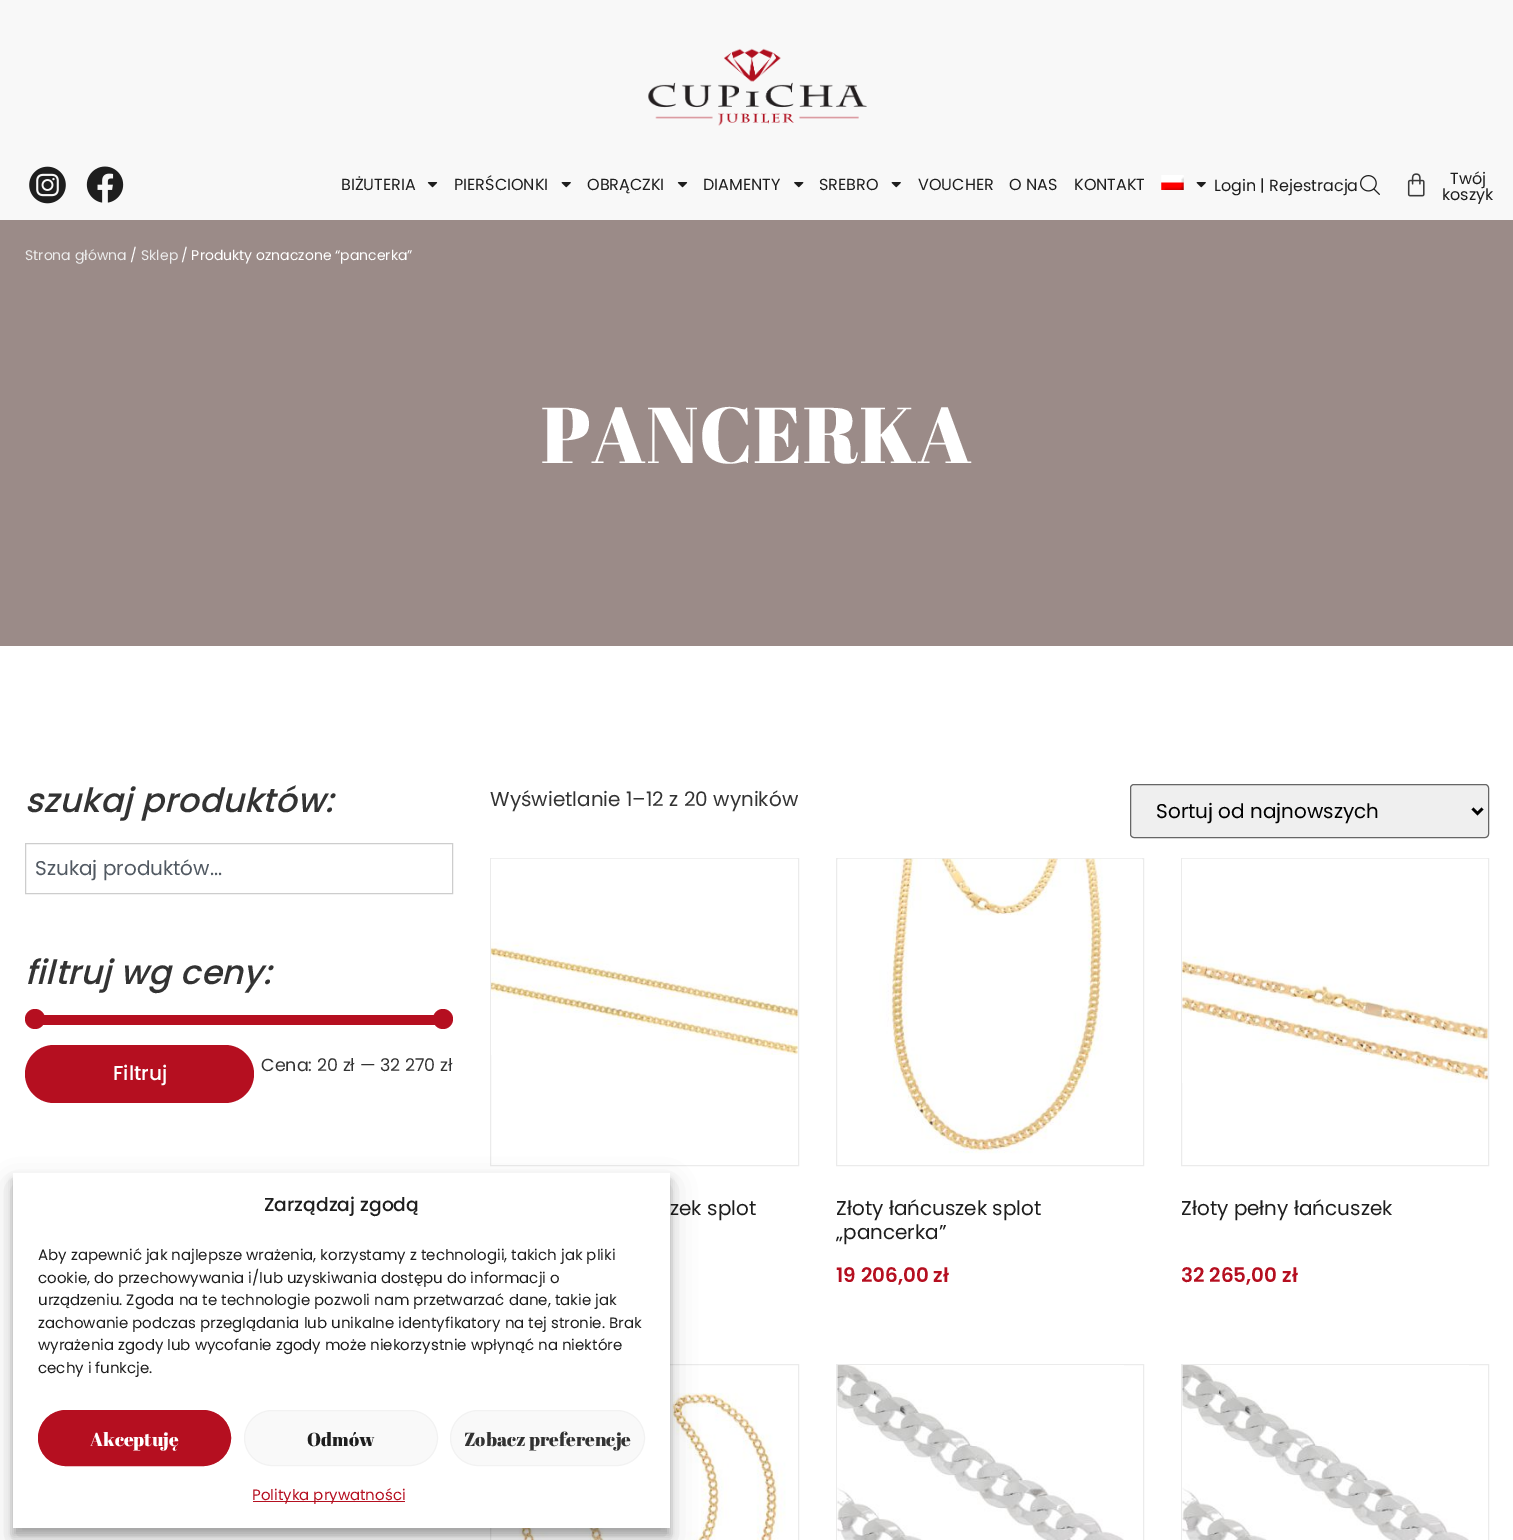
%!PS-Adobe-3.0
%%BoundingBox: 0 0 1513 1540
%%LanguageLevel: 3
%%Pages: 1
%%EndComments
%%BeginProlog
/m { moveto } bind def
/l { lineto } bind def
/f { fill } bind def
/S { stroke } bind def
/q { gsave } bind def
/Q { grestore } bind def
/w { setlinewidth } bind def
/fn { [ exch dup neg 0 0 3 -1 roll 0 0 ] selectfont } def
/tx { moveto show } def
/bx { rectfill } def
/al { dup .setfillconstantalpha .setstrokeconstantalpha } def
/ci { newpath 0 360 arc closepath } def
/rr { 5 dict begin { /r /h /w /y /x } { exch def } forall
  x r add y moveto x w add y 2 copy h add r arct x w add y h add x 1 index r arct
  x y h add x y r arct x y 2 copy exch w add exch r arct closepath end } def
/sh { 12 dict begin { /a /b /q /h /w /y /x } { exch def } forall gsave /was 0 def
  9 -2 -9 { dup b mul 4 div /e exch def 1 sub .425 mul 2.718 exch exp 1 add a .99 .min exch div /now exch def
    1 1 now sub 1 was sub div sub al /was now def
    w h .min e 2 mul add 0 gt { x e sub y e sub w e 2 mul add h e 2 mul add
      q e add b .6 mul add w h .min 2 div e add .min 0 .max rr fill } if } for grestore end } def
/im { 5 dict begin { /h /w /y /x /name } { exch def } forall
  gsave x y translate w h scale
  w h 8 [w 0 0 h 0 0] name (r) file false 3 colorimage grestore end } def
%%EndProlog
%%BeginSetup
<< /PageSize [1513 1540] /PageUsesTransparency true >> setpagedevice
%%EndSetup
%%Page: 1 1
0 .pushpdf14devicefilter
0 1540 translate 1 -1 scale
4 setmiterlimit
1 setgray
0 0 1513 1540 bx
0.973 setgray
0 0 1513 220 bx
(image0.raw) 648 48 219 78 im
(image1.raw) 29 166 37 38 im
(image2.raw) 86 166 38 37 im
/Poppins-Regular 16 fn
0.118 setgray
(BIŻUTERIA) 341 190 tx
(image3.raw) 427 182 11 6 im
(PIERŚCIONKI) 454 190 tx
(image4.raw) 561 182 10 6 im
(OBRĄCZKI) 587 190 tx
(image3.raw) 677 182 11 6 im
(DIAMENTY) 703 190 tx
(image5.raw) 794 182 10 6 im
(SREBRO) 819 190 tx
(image4.raw) 891 182 10 6 im
(VOUCHER) 918 190 tx
(O NAS) 1009 190 tx
(KONTAKT) 1074 190 tx
(image6.raw) 1161 175 23 15 im
(image4.raw) 1196 182 10 6 im
(Login | Rejestracja) 1214 191 tx
(image7.raw) 1360 175 20 20 im
(image8.raw) 1407 173 18 24 im
(Twój) 1450 184 tx
(koszyk) 1442 200 tx
0.608 0.545 0.533 setrgbcolor
0 220 1513 426 bx
/Poppins-Regular 14 fn
0.922 setgray
(Strona główna) 25 260 tx
1 setgray
(/) 130 260 tx
0.922 setgray
(Sklep) 141 260 tx
1 setgray
(/ Produkty oznaczone “pancerka”) 181 260 tx
/AbrilFatface-Regular 79 fn
(PANCERKA) 541 463 tx
/Poppins-MediumItalic 33.5 fn
0.2 setgray
25 812 m 0.25 0 (szukaj produktów:) ashow
0.804 setgray
25.5 843.5 427 50 rectstroke
/Poppins-Regular 20 fn
0.318 0.349 0.384 setrgbcolor
(Szukaj produktów...) 35 875 tx
/Poppins-MediumItalic 33.5 fn
0.2 setgray
25 984 m 0.25 0 (filtruj wg ceny:) ashow
0.71 0.059 0.125 setrgbcolor
43 1015 392 10 bx
35 1019 10 ci f
443 1019 10 ci f
25 1045 229 58 29 rr f
/Poppins-Medium 20 fn
1 setgray
(Filtruj) 113 1080 tx
/Poppins-Regular 17.5 fn
0.2 setgray
(Cena: 20 zł — 32 270 zł) 261 1071 tx
/Poppins-Regular 20 fn
(Wyświetlanie 1–12 z 20 wyników) 490 806 tx
0.937 setgray
1130.5 784.5 358 53 3.5 rr q f Q
0.4 setgray
S
0 setgray
2.5 w
1472.5 808.5 m 1477.5 813.5 l 1482.5 808.5 l S
(Sortuj od najnowszych) 1156 818 tx
0.922 setgray
1 w
490.5 858.5 308 307 rectstroke
(image9.raw) 491 858 307 197 im
0.118 setgray
(zek splot) 670 1215 tx
0.922 setgray
836.5 858.5 307 307 rectstroke
(image10.raw) 838 858 304 296 im
0.118 setgray
(Złoty łańcuszek splot) 836 1215 tx
(„pancerka”) 836 1239 tx
/Poppins-SemiBold 20 fn
0.71 0.059 0.125 setrgbcolor
(19 206,00 zł) 836 1282 tx
0.922 setgray
1181.5 858.5 307 307 rectstroke
(image11.raw) 1182 858 306 225 im
/Poppins-Regular 20 fn
0.118 setgray
(Złoty pełny łańcuszek) 1181 1215 tx
/Poppins-SemiBold 20 fn
0.71 0.059 0.125 setrgbcolor
(32 265,00 zł) 1181 1282 tx
0.922 setgray
490.5 1364.5 308 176 rectstroke
(image12.raw) 505 1392 281 148 im
836.5 1364.5 307 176 rectstroke
(image13.raw) 837 1365 287 175 im
1181.5 1364.5 307 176 rectstroke
(image13.raw) 1182 1365 287 175 im
0 setgray
13 1180 657 355 0 4 0.23 sh
13 1185 657 355 0 12.5 0.19 sh
1 setgray
13 1173 657 355 bx
/Poppins-Medium 18.75 fn
0.118 setgray
(Zarządzaj zgodą) 264 1211 tx
/Poppins-Regular 15 fn
(Aby zapewnić jak najlepsze wrażenia, korzystamy z technologii, takich jak pliki) 38 1260 tx
(cookie, do przechowywania i/lub uzyskiwania dostępu do informacji o) 38 1283 tx
(urządzeniu. Zgoda na te technologie pozwoli nam przetwarzać dane, takie jak) 38 1305 tx
(zachowanie podczas przeglądania lub unikalne identyfikatory na tej stronie. Brak) 38 1328 tx
(wyrażenia zgody lub wycofanie zgody może niekorzystnie wpłynąć na niektóre) 38 1350 tx
(cechy i funkcje.) 38 1373 tx
0.71 0.059 0.125 setrgbcolor
38.5 1410.5 192 55 27.5 rr q f Q
S
/AbrilFatface-Regular 18.75 fn
1 setgray
(Akceptuję) 90 1446 tx
0.976 setgray
244.5 1410.5 193 55 27.5 rr q f Q
0.949 setgray
S
0.118 setgray
(Odmów) 307 1446 tx
0.976 setgray
450.5 1410.5 194 55 27.5 rr q f Q
0.949 setgray
S
0.2 setgray
(Zobacz preferencje) 464 1446 tx
0.71 0.059 0.125 setrgbcolor
253 1501 152 1 bx
/Poppins-Regular 15 fn
(Polityka prywatności) 252 1500 tx
.poppdf14devicefilter showpage
%%EOF
